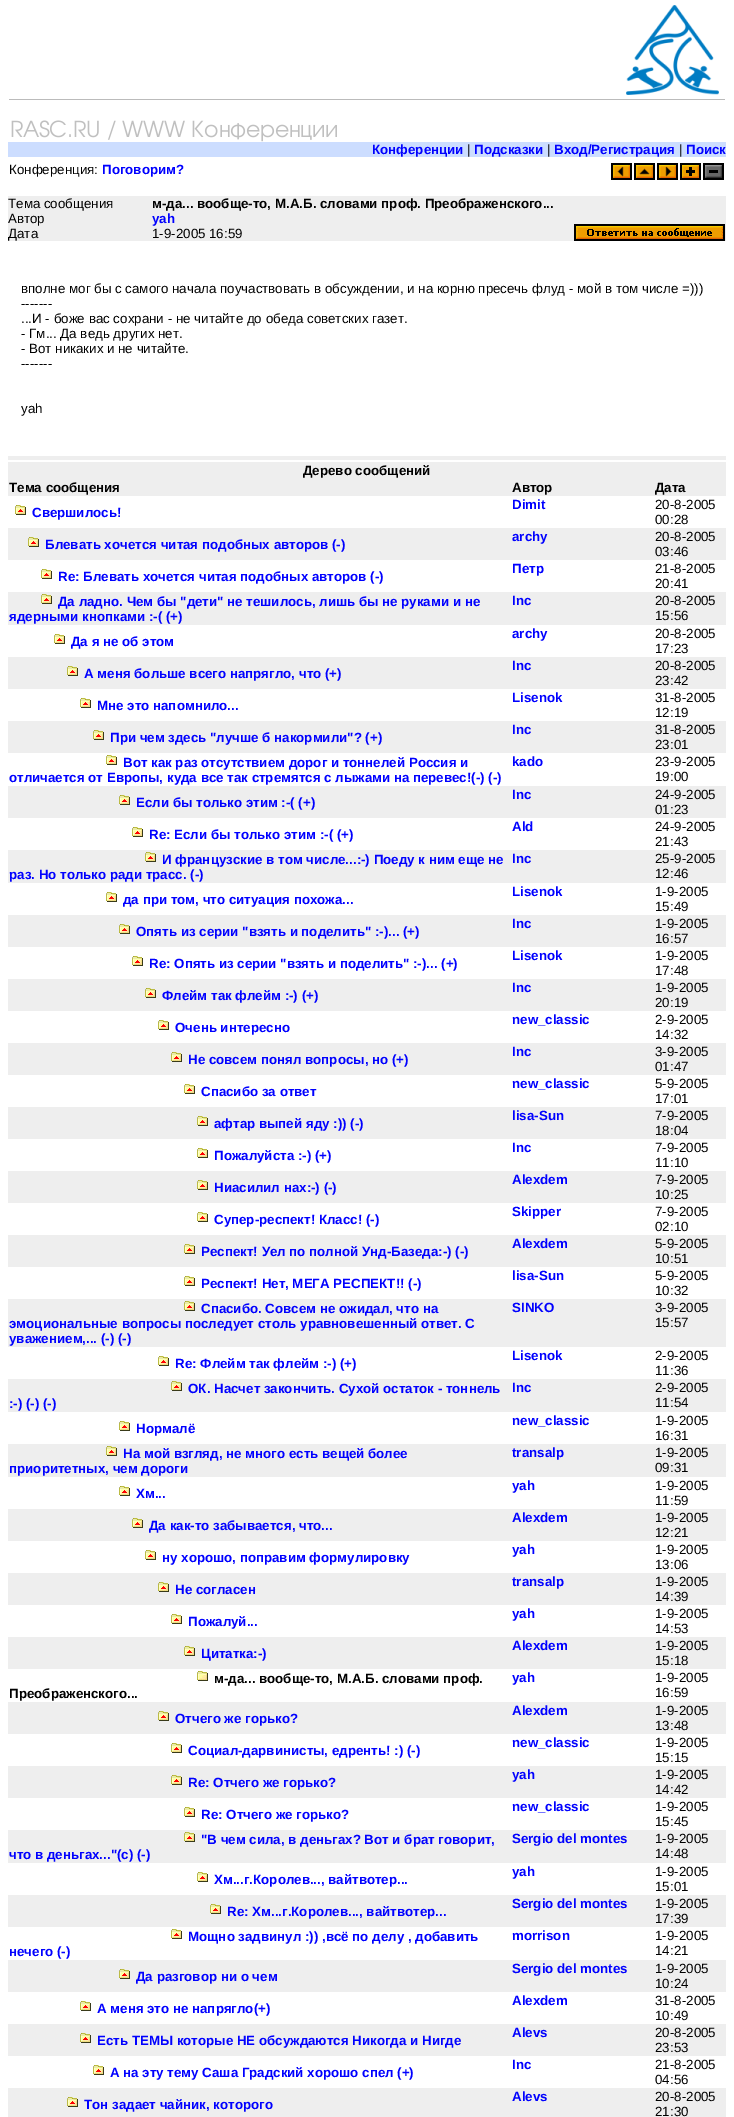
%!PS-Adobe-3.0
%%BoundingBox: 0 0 734 2117
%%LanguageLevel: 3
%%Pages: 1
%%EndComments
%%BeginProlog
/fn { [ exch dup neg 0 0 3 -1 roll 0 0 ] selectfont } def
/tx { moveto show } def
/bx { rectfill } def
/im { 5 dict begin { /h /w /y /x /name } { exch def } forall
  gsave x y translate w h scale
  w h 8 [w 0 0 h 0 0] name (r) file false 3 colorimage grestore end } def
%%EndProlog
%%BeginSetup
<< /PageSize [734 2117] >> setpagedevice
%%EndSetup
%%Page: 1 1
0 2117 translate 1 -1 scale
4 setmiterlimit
1 setgray
0 0 734 2117 bx
(image0.raw) 626 5 93 90 im
0.733 setgray
9 99 716 1 bx
(image1.raw) 11 120 326 22 im
0.8 0.867 1 setrgbcolor
8 142 718 15 bx
/LiberationSans-Bold 13.33 fn
0 0 1 setrgbcolor
(Конференции) 372 154 tx
/LiberationSans-Regular 13.33 fn
0 setgray
(|) 467 154 tx
/LiberationSans-Bold 13.33 fn
0 0 1 setrgbcolor
(Подсказки) 474 154 tx
/LiberationSans-Regular 13.33 fn
0 setgray
(|) 547 154 tx
/LiberationSans-Bold 13.33 fn
0 0 1 setrgbcolor
(Вход/Регистрация) 554 154 tx
/LiberationSans-Regular 13.33 fn
0 setgray
(|) 679 154 tx
/LiberationSans-Bold 13.33 fn
0 0 1 setrgbcolor
(Поиск) 686 154 tx
/LiberationSans-Regular 13.33 fn
0 setgray
(Конференция:) 9 174 tx
/LiberationSans-Bold 13.33 fn
0 0 1 setrgbcolor
(Поговорим?) 102 174 tx
(image2.raw) 611 163 21 17 im
(image3.raw) 634 163 21 17 im
(image4.raw) 657 163 21 17 im
(image5.raw) 680 163 21 17 im
(image6.raw) 703 163 21 17 im
0.933 setgray
8 196 718 45 bx
/LiberationSans-Regular 13.33 fn
0 setgray
(Тема сообщения) 8 208 tx
/LiberationSans-Bold 13.33 fn
(м-да... вообще-то, М.А.Б. словами проф. Преображенского...) 152 208 tx
(image7.raw) 574 224 151 17 im
/LiberationSans-Regular 13.33 fn
(Автор) 8 223 tx
/LiberationSans-Bold 13.33 fn
0 0 1 setrgbcolor
(yah) 152 223 tx
/LiberationSans-Regular 13.33 fn
0 setgray
(Дата) 8 238 tx
(1-9-2005 16:59) 152 238 tx
(вполне мог бы с самого начала поучаствовать в обсуждении, и на корню пресечь флуд - мой в том числе =\)\)\)) 21 293 tx
(-------) 21 308 tx
(...И - боже вас сохрани - не читайте до обеда советских газет.) 21 323 tx
(- Гм... Да ведь других нет.) 21 338 tx
(- Вот никаких и не читайте.) 21 353 tx
(-------) 21 368 tx
(yah) 21 413 tx
0.933 setgray
8 456 718 4 bx
8 462 718 34 bx
/LiberationSans-Bold 13.33 fn
0 setgray
(Дерево сообщений) 303 475 tx
(Тема сообщения) 9 492 tx
(Автор) 512 492 tx
(Дата) 655 492 tx
(image8.raw) 15 505 11 10 im
0 0 1 setrgbcolor
(Свершилось!) 32 517 tx
(Dimit) 512 509 tx
/LiberationSans-Regular 13.33 fn
0 setgray
(20-8-2005) 655 509 tx
(00:28) 655 524 tx
0.933 setgray
8 528 718 32 bx
(image9.raw) 28 537 11 10 im
/LiberationSans-Bold 13.33 fn
0 0 1 setrgbcolor
(Блевать хочется читая подобных авторов \(-\)) 45 549 tx
(archy) 512 541 tx
/LiberationSans-Regular 13.33 fn
0 setgray
(20-8-2005) 655 541 tx
(03:46) 655 556 tx
(image8.raw) 41 569 11 10 im
/LiberationSans-Bold 13.33 fn
0 0 1 setrgbcolor
(Re: Блевать хочется читая подобных авторов \(-\)) 58 581 tx
(Пeтр) 512 573 tx
/LiberationSans-Regular 13.33 fn
0 setgray
(21-8-2005) 655 573 tx
(20:41) 655 588 tx
0.933 setgray
8 592 718 33 bx
(image9.raw) 41 594 11 10 im
/LiberationSans-Bold 13.33 fn
0 0 1 setrgbcolor
(Да ладно. Чем бы "дети" не тешилось, лишь бы не руками и не) 58 606 tx
(ядерными кнопками :-\( \(+\)) 9 621 tx
(Inc) 512 605 tx
/LiberationSans-Regular 13.33 fn
0 setgray
(20-8-2005) 655 605 tx
(15:56) 655 620 tx
(image8.raw) 54 634 11 10 im
/LiberationSans-Bold 13.33 fn
0 0 1 setrgbcolor
(Да я не об этом) 71 646 tx
(archy) 512 638 tx
/LiberationSans-Regular 13.33 fn
0 setgray
(20-8-2005) 655 638 tx
(17:23) 655 653 tx
0.933 setgray
8 657 718 32 bx
(image9.raw) 67 666 11 10 im
/LiberationSans-Bold 13.33 fn
0 0 1 setrgbcolor
(А меня больше всего напрягло, что \(+\)) 84 678 tx
(Inc) 512 670 tx
/LiberationSans-Regular 13.33 fn
0 setgray
(20-8-2005) 655 670 tx
(23:42) 655 685 tx
(image8.raw) 80 698 11 10 im
/LiberationSans-Bold 13.33 fn
0 0 1 setrgbcolor
(Мне это напомнило...) 97 710 tx
(Lisenok) 512 702 tx
/LiberationSans-Regular 13.33 fn
0 setgray
(31-8-2005) 655 702 tx
(12:19) 655 717 tx
0.933 setgray
8 721 718 32 bx
(image9.raw) 93 730 11 10 im
/LiberationSans-Bold 13.33 fn
0 0 1 setrgbcolor
(При чем здесь "лучше б накормили"? \(+\)) 110 742 tx
(Inc) 512 734 tx
/LiberationSans-Regular 13.33 fn
0 setgray
(31-8-2005) 655 734 tx
(23:01) 655 749 tx
(image8.raw) 106 755 11 10 im
/LiberationSans-Bold 13.33 fn
0 0 1 setrgbcolor
(Вот как раз отсутствием дорог и тоннелей Россия и) 123 767 tx
(отличается от Европы, куда все так стремятся с лыжами на перевес!\(-\) \(-\)) 9 782 tx
(kado) 512 766 tx
/LiberationSans-Regular 13.33 fn
0 setgray
(23-9-2005) 655 766 tx
(19:00) 655 781 tx
0.933 setgray
8 786 718 32 bx
(image9.raw) 119 795 11 10 im
/LiberationSans-Bold 13.33 fn
0 0 1 setrgbcolor
(Если бы только этим :-\( \(+\)) 136 807 tx
(Inc) 512 799 tx
/LiberationSans-Regular 13.33 fn
0 setgray
(24-9-2005) 655 799 tx
(01:23) 655 814 tx
(image8.raw) 132 827 11 10 im
/LiberationSans-Bold 13.33 fn
0 0 1 setrgbcolor
(Re: Если бы только этим :-\( \(+\)) 149 839 tx
(Ald) 512 831 tx
/LiberationSans-Regular 13.33 fn
0 setgray
(24-9-2005) 655 831 tx
(21:43) 655 846 tx
0.933 setgray
8 850 718 33 bx
(image9.raw) 145 852 11 10 im
/LiberationSans-Bold 13.33 fn
0 0 1 setrgbcolor
(И французские в том числе...:-\) Поеду к ним еще не) 162 864 tx
(раз. Но только ради трасс. \(-\)) 9 879 tx
(Inc) 512 863 tx
/LiberationSans-Regular 13.33 fn
0 setgray
(25-9-2005) 655 863 tx
(12:46) 655 878 tx
(image8.raw) 106 892 11 10 im
/LiberationSans-Bold 13.33 fn
0 0 1 setrgbcolor
(да при том, что ситуация похожа...) 123 904 tx
(Lisenok) 512 896 tx
/LiberationSans-Regular 13.33 fn
0 setgray
(1-9-2005) 655 896 tx
(15:49) 655 911 tx
0.933 setgray
8 915 718 32 bx
(image9.raw) 119 924 11 10 im
/LiberationSans-Bold 13.33 fn
0 0 1 setrgbcolor
(Опять из серии "взять и поделить" :-\)... \(+\)) 136 936 tx
(Inc) 512 928 tx
/LiberationSans-Regular 13.33 fn
0 setgray
(1-9-2005) 655 928 tx
(16:57) 655 943 tx
(image8.raw) 132 956 11 10 im
/LiberationSans-Bold 13.33 fn
0 0 1 setrgbcolor
(Re: Опять из серии "взять и поделить" :-\)... \(+\)) 149 968 tx
(Lisenok) 512 960 tx
/LiberationSans-Regular 13.33 fn
0 setgray
(1-9-2005) 655 960 tx
(17:48) 655 975 tx
0.933 setgray
8 979 718 32 bx
(image9.raw) 145 988 11 10 im
/LiberationSans-Bold 13.33 fn
0 0 1 setrgbcolor
(Флейм так флейм :-\) \(+\)) 162 1000 tx
(Inc) 512 992 tx
/LiberationSans-Regular 13.33 fn
0 setgray
(1-9-2005) 655 992 tx
(20:19) 655 1007 tx
(image8.raw) 158 1020 11 10 im
/LiberationSans-Bold 13.33 fn
0 0 1 setrgbcolor
(Очень интересно) 175 1032 tx
(new_classic) 512 1024 tx
/LiberationSans-Regular 13.33 fn
0 setgray
(2-9-2005) 655 1024 tx
(14:32) 655 1039 tx
0.933 setgray
8 1043 718 32 bx
(image9.raw) 171 1052 11 10 im
/LiberationSans-Bold 13.33 fn
0 0 1 setrgbcolor
(Не совсем понял вопросы, но \(+\)) 188 1064 tx
(Inc) 512 1056 tx
/LiberationSans-Regular 13.33 fn
0 setgray
(3-9-2005) 655 1056 tx
(01:47) 655 1071 tx
(image8.raw) 184 1084 11 10 im
/LiberationSans-Bold 13.33 fn
0 0 1 setrgbcolor
(Спасибо за ответ) 201 1096 tx
(new_classic) 512 1088 tx
/LiberationSans-Regular 13.33 fn
0 setgray
(5-9-2005) 655 1088 tx
(17:01) 655 1103 tx
0.933 setgray
8 1107 718 32 bx
(image9.raw) 197 1116 11 10 im
/LiberationSans-Bold 13.33 fn
0 0 1 setrgbcolor
(афтар выпей яду :\)\) \(-\)) 214 1128 tx
(lisa-Sun) 512 1120 tx
/LiberationSans-Regular 13.33 fn
0 setgray
(7-9-2005) 655 1120 tx
(18:04) 655 1135 tx
(image8.raw) 197 1148 11 10 im
/LiberationSans-Bold 13.33 fn
0 0 1 setrgbcolor
(Пожалуйста :-\) \(+\)) 214 1160 tx
(Inc) 512 1152 tx
/LiberationSans-Regular 13.33 fn
0 setgray
(7-9-2005) 655 1152 tx
(11:10) 655 1167 tx
0.933 setgray
8 1171 718 32 bx
(image9.raw) 197 1180 11 10 im
/LiberationSans-Bold 13.33 fn
0 0 1 setrgbcolor
(Ниасилил нах:-\) \(-\)) 214 1192 tx
(Alexdem) 512 1184 tx
/LiberationSans-Regular 13.33 fn
0 setgray
(7-9-2005) 655 1184 tx
(10:25) 655 1199 tx
(image8.raw) 197 1212 11 10 im
/LiberationSans-Bold 13.33 fn
0 0 1 setrgbcolor
(Супер-респект! Класс! \(-\)) 214 1224 tx
(Skipper) 512 1216 tx
/LiberationSans-Regular 13.33 fn
0 setgray
(7-9-2005) 655 1216 tx
(02:10) 655 1231 tx
0.933 setgray
8 1235 718 32 bx
(image9.raw) 184 1244 11 10 im
/LiberationSans-Bold 13.33 fn
0 0 1 setrgbcolor
(Респект! Уел по полной Унд-Базеда:-\) \(-\)) 201 1256 tx
(Alexdem) 512 1248 tx
/LiberationSans-Regular 13.33 fn
0 setgray
(5-9-2005) 655 1248 tx
(10:51) 655 1263 tx
(image8.raw) 184 1276 11 10 im
/LiberationSans-Bold 13.33 fn
0 0 1 setrgbcolor
(Респект! Нет, МЕГА РЕСПЕКТ!! \(-\)) 201 1288 tx
(lisa-Sun) 512 1280 tx
/LiberationSans-Regular 13.33 fn
0 setgray
(5-9-2005) 655 1280 tx
(10:32) 655 1295 tx
0.933 setgray
8 1299 718 48 bx
(image9.raw) 184 1301 11 10 im
/LiberationSans-Bold 13.33 fn
0 0 1 setrgbcolor
(Спасибо. Совсем не ожидал, что на) 201 1313 tx
(эмоциональные вопросы последует столь уравновешенный ответ. С) 9 1328 tx
(уважением,... \(-\) \(-\)) 9 1343 tx
(SINKO) 512 1312 tx
/LiberationSans-Regular 13.33 fn
0 setgray
(3-9-2005) 655 1312 tx
(15:57) 655 1327 tx
(image8.raw) 158 1356 11 10 im
/LiberationSans-Bold 13.33 fn
0 0 1 setrgbcolor
(Re: Флейм так флейм :-\) \(+\)) 175 1368 tx
(Lisenok) 512 1360 tx
/LiberationSans-Regular 13.33 fn
0 setgray
(2-9-2005) 655 1360 tx
(11:36) 655 1375 tx
0.933 setgray
8 1379 718 33 bx
(image9.raw) 171 1381 11 10 im
/LiberationSans-Bold 13.33 fn
0 0 1 setrgbcolor
(ОК. Насчет закончить. Сухой остаток - тоннель) 188 1393 tx
(:-\) \(-\) \(-\)) 9 1408 tx
(Inc) 512 1392 tx
/LiberationSans-Regular 13.33 fn
0 setgray
(2-9-2005) 655 1392 tx
(11:54) 655 1407 tx
(image8.raw) 119 1421 11 10 im
/LiberationSans-Bold 13.33 fn
0 0 1 setrgbcolor
(Нормалё) 136 1433 tx
(new_classic) 512 1425 tx
/LiberationSans-Regular 13.33 fn
0 setgray
(1-9-2005) 655 1425 tx
(16:31) 655 1440 tx
0.933 setgray
8 1444 718 33 bx
(image9.raw) 106 1446 11 10 im
/LiberationSans-Bold 13.33 fn
0 0 1 setrgbcolor
(На мой взгляд, не много есть вещей более) 123 1458 tx
(приоритетных, чем дороги) 9 1473 tx
(transalp) 512 1457 tx
/LiberationSans-Regular 13.33 fn
0 setgray
(1-9-2005) 655 1457 tx
(09:31) 655 1472 tx
(image8.raw) 119 1486 11 10 im
/LiberationSans-Bold 13.33 fn
0 0 1 setrgbcolor
(Хм...) 136 1498 tx
(yah) 512 1490 tx
/LiberationSans-Regular 13.33 fn
0 setgray
(1-9-2005) 655 1490 tx
(11:59) 655 1505 tx
0.933 setgray
8 1509 718 32 bx
(image9.raw) 132 1518 11 10 im
/LiberationSans-Bold 13.33 fn
0 0 1 setrgbcolor
(Да как-то забывается, что...) 149 1530 tx
(Alexdem) 512 1522 tx
/LiberationSans-Regular 13.33 fn
0 setgray
(1-9-2005) 655 1522 tx
(12:21) 655 1537 tx
(image8.raw) 145 1550 11 10 im
/LiberationSans-Bold 13.33 fn
0 0 1 setrgbcolor
(ну хорошо, поправим формулировку) 162 1562 tx
(yah) 512 1554 tx
/LiberationSans-Regular 13.33 fn
0 setgray
(1-9-2005) 655 1554 tx
(13:06) 655 1569 tx
0.933 setgray
8 1573 718 32 bx
(image9.raw) 158 1582 11 10 im
/LiberationSans-Bold 13.33 fn
0 0 1 setrgbcolor
(Не согласен) 175 1594 tx
(transalp) 512 1586 tx
/LiberationSans-Regular 13.33 fn
0 setgray
(1-9-2005) 655 1586 tx
(14:39) 655 1601 tx
(image8.raw) 171 1614 11 10 im
/LiberationSans-Bold 13.33 fn
0 0 1 setrgbcolor
(Пожалуй...) 188 1626 tx
(yah) 512 1618 tx
/LiberationSans-Regular 13.33 fn
0 setgray
(1-9-2005) 655 1618 tx
(14:53) 655 1633 tx
0.933 setgray
8 1637 718 32 bx
(image9.raw) 184 1646 11 10 im
/LiberationSans-Bold 13.33 fn
0 0 1 setrgbcolor
(Цитатка:-\)) 201 1658 tx
(Alexdem) 512 1650 tx
/LiberationSans-Regular 13.33 fn
0 setgray
(1-9-2005) 655 1650 tx
(15:18) 655 1665 tx
(image10.raw) 197 1671 11 10 im
/LiberationSans-Bold 13.33 fn
(м-да... вообще-то, М.А.Б. словами проф.) 214 1683 tx
(Преображенского...) 9 1698 tx
0 0 1 setrgbcolor
(yah) 512 1682 tx
/LiberationSans-Regular 13.33 fn
0 setgray
(1-9-2005) 655 1682 tx
(16:59) 655 1697 tx
0.933 setgray
8 1702 718 32 bx
(image9.raw) 158 1711 11 10 im
/LiberationSans-Bold 13.33 fn
0 0 1 setrgbcolor
(Отчего же горько?) 175 1723 tx
(Alexdem) 512 1715 tx
/LiberationSans-Regular 13.33 fn
0 setgray
(1-9-2005) 655 1715 tx
(13:48) 655 1730 tx
(image8.raw) 171 1743 11 10 im
/LiberationSans-Bold 13.33 fn
0 0 1 setrgbcolor
(Социал-дарвинисты, едренть! :\) \(-\)) 188 1755 tx
(new_classic) 512 1747 tx
/LiberationSans-Regular 13.33 fn
0 setgray
(1-9-2005) 655 1747 tx
(15:15) 655 1762 tx
0.933 setgray
8 1766 718 32 bx
(image9.raw) 171 1775 11 10 im
/LiberationSans-Bold 13.33 fn
0 0 1 setrgbcolor
(Re: Отчего же горько?) 188 1787 tx
(yah) 512 1779 tx
/LiberationSans-Regular 13.33 fn
0 setgray
(1-9-2005) 655 1779 tx
(14:42) 655 1794 tx
(image8.raw) 184 1807 11 10 im
/LiberationSans-Bold 13.33 fn
0 0 1 setrgbcolor
(Re: Отчего же горько?) 201 1819 tx
(new_classic) 512 1811 tx
/LiberationSans-Regular 13.33 fn
0 setgray
(1-9-2005) 655 1811 tx
(15:45) 655 1826 tx
0.933 setgray
8 1830 718 33 bx
(image9.raw) 184 1832 11 10 im
/LiberationSans-Bold 13.33 fn
0 0 1 setrgbcolor
("В чем сила, в деньгах? Вот и брат говорит,) 201 1844 tx
(что в деньгах..."\(с\) \(-\)) 9 1859 tx
(Sergio del montes) 512 1843 tx
/LiberationSans-Regular 13.33 fn
0 setgray
(1-9-2005) 655 1843 tx
(14:48) 655 1858 tx
(image8.raw) 197 1872 11 10 im
/LiberationSans-Bold 13.33 fn
0 0 1 setrgbcolor
(Хм...г.Королев..., вайтвотер...) 214 1884 tx
(yah) 512 1876 tx
/LiberationSans-Regular 13.33 fn
0 setgray
(1-9-2005) 655 1876 tx
(15:01) 655 1891 tx
0.933 setgray
8 1895 718 32 bx
(image9.raw) 210 1904 11 10 im
/LiberationSans-Bold 13.33 fn
0 0 1 setrgbcolor
(Re: Хм...г.Королев..., вайтвотер...) 227 1916 tx
(Sergio del montes) 512 1908 tx
/LiberationSans-Regular 13.33 fn
0 setgray
(1-9-2005) 655 1908 tx
(17:39) 655 1923 tx
(image8.raw) 171 1929 11 10 im
/LiberationSans-Bold 13.33 fn
0 0 1 setrgbcolor
(Мощно задвинул :\)\) ,всё по делу , добавить) 188 1941 tx
(нечего \(-\)) 9 1956 tx
(morrison) 512 1940 tx
/LiberationSans-Regular 13.33 fn
0 setgray
(1-9-2005) 655 1940 tx
(14:21) 655 1955 tx
0.933 setgray
8 1960 718 32 bx
(image9.raw) 119 1969 11 10 im
/LiberationSans-Bold 13.33 fn
0 0 1 setrgbcolor
(Да разговор ни о чем) 136 1981 tx
(Sergio del montes) 512 1973 tx
/LiberationSans-Regular 13.33 fn
0 setgray
(1-9-2005) 655 1973 tx
(10:24) 655 1988 tx
(image8.raw) 80 2001 11 10 im
/LiberationSans-Bold 13.33 fn
0 0 1 setrgbcolor
(А меня это не напрягло\(+\)) 97 2013 tx
(Alexdem) 512 2005 tx
/LiberationSans-Regular 13.33 fn
0 setgray
(31-8-2005) 655 2005 tx
(10:49) 655 2020 tx
0.933 setgray
8 2024 718 32 bx
(image9.raw) 80 2033 11 10 im
/LiberationSans-Bold 13.33 fn
0 0 1 setrgbcolor
(Есть ТЕМЫ которые НЕ обсуждаются Никогда и Нигде) 97 2045 tx
(Alevs) 512 2037 tx
/LiberationSans-Regular 13.33 fn
0 setgray
(20-8-2005) 655 2037 tx
(23:53) 655 2052 tx
(image8.raw) 93 2065 11 10 im
/LiberationSans-Bold 13.33 fn
0 0 1 setrgbcolor
(А на эту тему Саша Градский хорошо спел \(+\)) 110 2077 tx
(Inc) 512 2069 tx
/LiberationSans-Regular 13.33 fn
0 setgray
(21-8-2005) 655 2069 tx
(04:56) 655 2084 tx
0.933 setgray
8 2088 718 29 bx
(image9.raw) 67 2097 11 10 im
/LiberationSans-Bold 13.33 fn
0 0 1 setrgbcolor
(Тон задает чайник, которого) 84 2109 tx
(Alevs) 512 2101 tx
/LiberationSans-Regular 13.33 fn
0 setgray
(20-8-2005) 655 2101 tx
(21:30) 655 2116 tx
showpage
%%EOF
